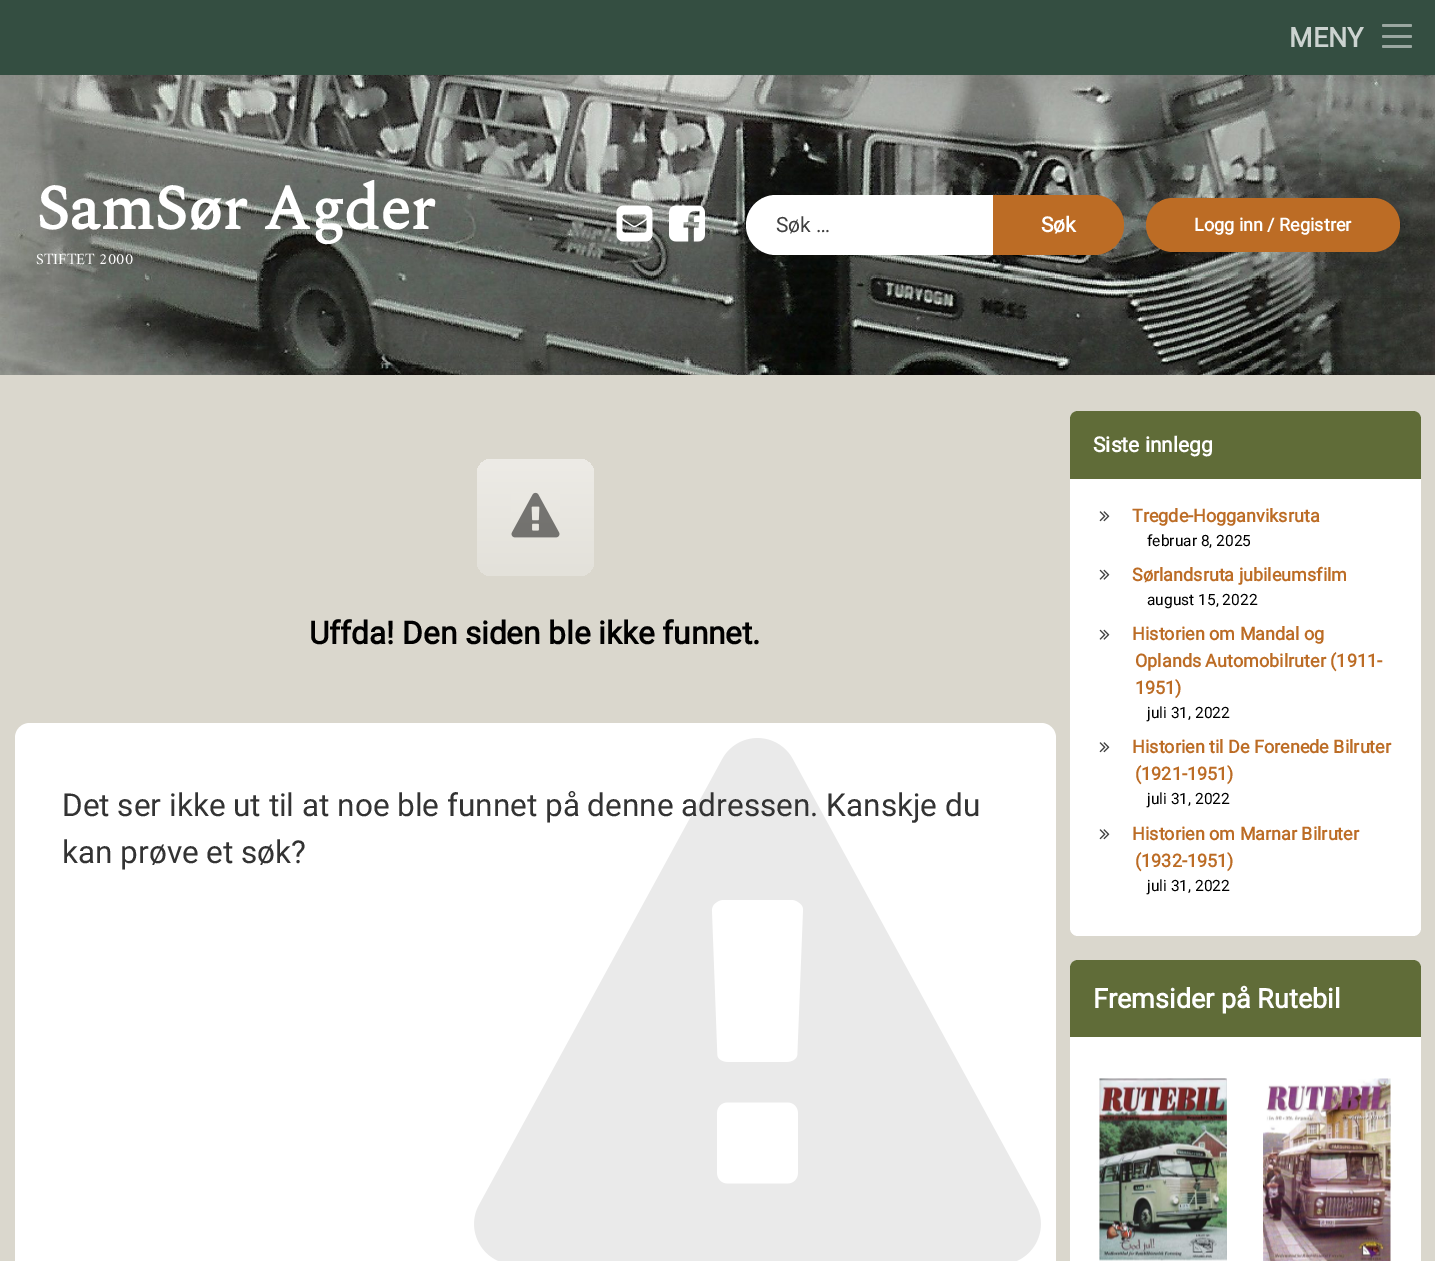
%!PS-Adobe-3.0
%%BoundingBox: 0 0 1435 1261
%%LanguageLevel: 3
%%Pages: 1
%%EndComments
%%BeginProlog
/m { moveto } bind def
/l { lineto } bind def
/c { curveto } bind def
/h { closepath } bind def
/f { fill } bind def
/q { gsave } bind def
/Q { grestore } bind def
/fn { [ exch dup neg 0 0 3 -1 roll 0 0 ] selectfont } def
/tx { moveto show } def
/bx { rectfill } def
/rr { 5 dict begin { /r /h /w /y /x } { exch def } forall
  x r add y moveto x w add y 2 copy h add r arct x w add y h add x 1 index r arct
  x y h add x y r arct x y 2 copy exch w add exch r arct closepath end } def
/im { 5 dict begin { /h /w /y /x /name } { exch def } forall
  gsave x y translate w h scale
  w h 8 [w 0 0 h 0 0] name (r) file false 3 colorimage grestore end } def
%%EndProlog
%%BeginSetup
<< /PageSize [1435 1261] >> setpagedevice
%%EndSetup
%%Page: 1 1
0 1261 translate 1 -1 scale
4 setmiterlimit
0.855 0.843 0.804 setrgbcolor
0 0 1435 1261 bx
0.204 0.306 0.255 setrgbcolor
0 0 1435 75 bx
/Roboto-Bold 27 fn
0.8 0.827 0.816 setrgbcolor
(MENY) 1289 47 tx
0.604 0.655 0.627 setrgbcolor
1382 24 30 3 1.5 rr f
1382 35 30 3 1.5 rr f
1382 45 30 3 1.5 rr f
(image0.raw) 0 75 1435 300 im
/Spectral-Bold 63 fn
1 setgray
(SamSør Agder) 36 229 tx
/Amiri-Regular 15.75 fn
(STIFTET 2000) 36 264 tx
(image1.raw) 616 205 37 37 im
(image2.raw) 669 205 36 37 im
746 195 375 60 30 rr f
/Roboto-Regular 21 fn
0.251 setgray
(Søk …) 776 232 tx
0.737 0.424 0.145 setrgbcolor
993 195 m 1094 195 l 1110.5 195 1124 208.5 1124 225 c 1124 241.5 1110.5 255 1094 255 c 993 255 l h f
/Roboto-Bold 21 fn
1 setgray
(Søk) 1041 232 tx
0.737 0.424 0.145 setrgbcolor
1146 198 254 54 27 rr f
/Roboto-Bold 18 fn
1 setgray
(Logg inn / Registrer) 1194 231 tx
q 477 459 117 117 15 rr clip newpath
<< /ShadingType 2 /ColorSpace /DeviceRGB /Coords [536 576 536 459] /Extend [true true] /Function << /FunctionType 2 /Domain [0 1] /C0 [0.89 0.882 0.855] /C1 [0.929 0.922 0.902] /N 1 >> >> shfill Q
(image3.raw) 511 492 49 46 im
/Roboto-Bold 31.5 fn
0 setgray
(Uffda! Den siden ble ikke funnet.) 309 644 tx
1 setgray
30 723 m 1041 723 l 1049.5 723 1056 729.5 1056 738 c 1056 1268 l 1056 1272.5 1052.5 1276 1048 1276 c 23 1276 l 18.5 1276 15 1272.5 15 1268 c 15 738 l 15 729.5 21.5 723 30 723 c h f
(image4.raw) 474 738 567 523 im
/Roboto-Regular 31.5 fn
0.2 setgray
(Det ser ikke ut til at noe ble funnet på denne adressen. Kanskje du) 62 816 tx
(kan prøve et søk?) 62 863 tx
1 setgray
1070 411 351 525 8 rr f
0.376 0.424 0.22 setrgbcolor
1078 411 m 1413 411 l 1417.5 411 1421 414.5 1421 419 c 1421 479 l 1070 479 l 1070 419 l 1070 414.5 1073.5 411 1078 411 c h f
/Roboto-Bold 21 fn
1 setgray
(Siste innlegg) 1093 452 tx
(image5.raw) 1099 511 11 11 im
/Roboto-Bold 18 fn
0.737 0.424 0.145 setrgbcolor
(Tregde-Hogganviksruta) 1132 522 tx
/Roboto-Regular 15.5 fn
0 setgray
(februar 8, 2025) 1147 546 tx
(image6.raw) 1099 569 11 11 im
/Roboto-Bold 18 fn
0.737 0.424 0.145 setrgbcolor
(Sørlandsruta jubileumsfilm) 1132 581 tx
/Roboto-Regular 15.5 fn
0 setgray
(august 15, 2022) 1147 605 tx
(image6.raw) 1099 629 11 11 im
/Roboto-Bold 18 fn
0.737 0.424 0.145 setrgbcolor
(Historien om Mandal og) 1132 640 tx
(Oplands Automobilruter \(1911-) 1135 667 tx
(1951\)) 1135 694 tx
/Roboto-Regular 15.5 fn
0 setgray
(juli 31, 2022) 1147 718 tx
(image5.raw) 1099 742 11 11 im
/Roboto-Bold 18 fn
0.737 0.424 0.145 setrgbcolor
(Historien til De Forenede Bilruter) 1132 753 tx
(\(1921-1951\)) 1135 780 tx
/Roboto-Regular 15.5 fn
0 setgray
(juli 31, 2022) 1147 804 tx
(image5.raw) 1099 829 11 11 im
/Roboto-Bold 18 fn
0.737 0.424 0.145 setrgbcolor
(Historien om Marnar Bilruter) 1132 840 tx
(\(1932-1951\)) 1135 867 tx
/Roboto-Regular 15.5 fn
0 setgray
(juli 31, 2022) 1147 891 tx
1 setgray
1070 960 351 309 8 rr f
0.376 0.424 0.22 setrgbcolor
1078 960 m 1413 960 l 1417.5 960 1421 963.5 1421 968 c 1421 1037 l 1070 1037 l 1070 968 l 1070 963.5 1073.5 960 1078 960 c h f
/Roboto-Bold 27 fn
1 setgray
(Fremsider på Rutebil) 1093 1008 tx
(image7.raw) 1099 1078 128 183 im
(image8.raw) 1263 1078 128 183 im
showpage
%%EOF
